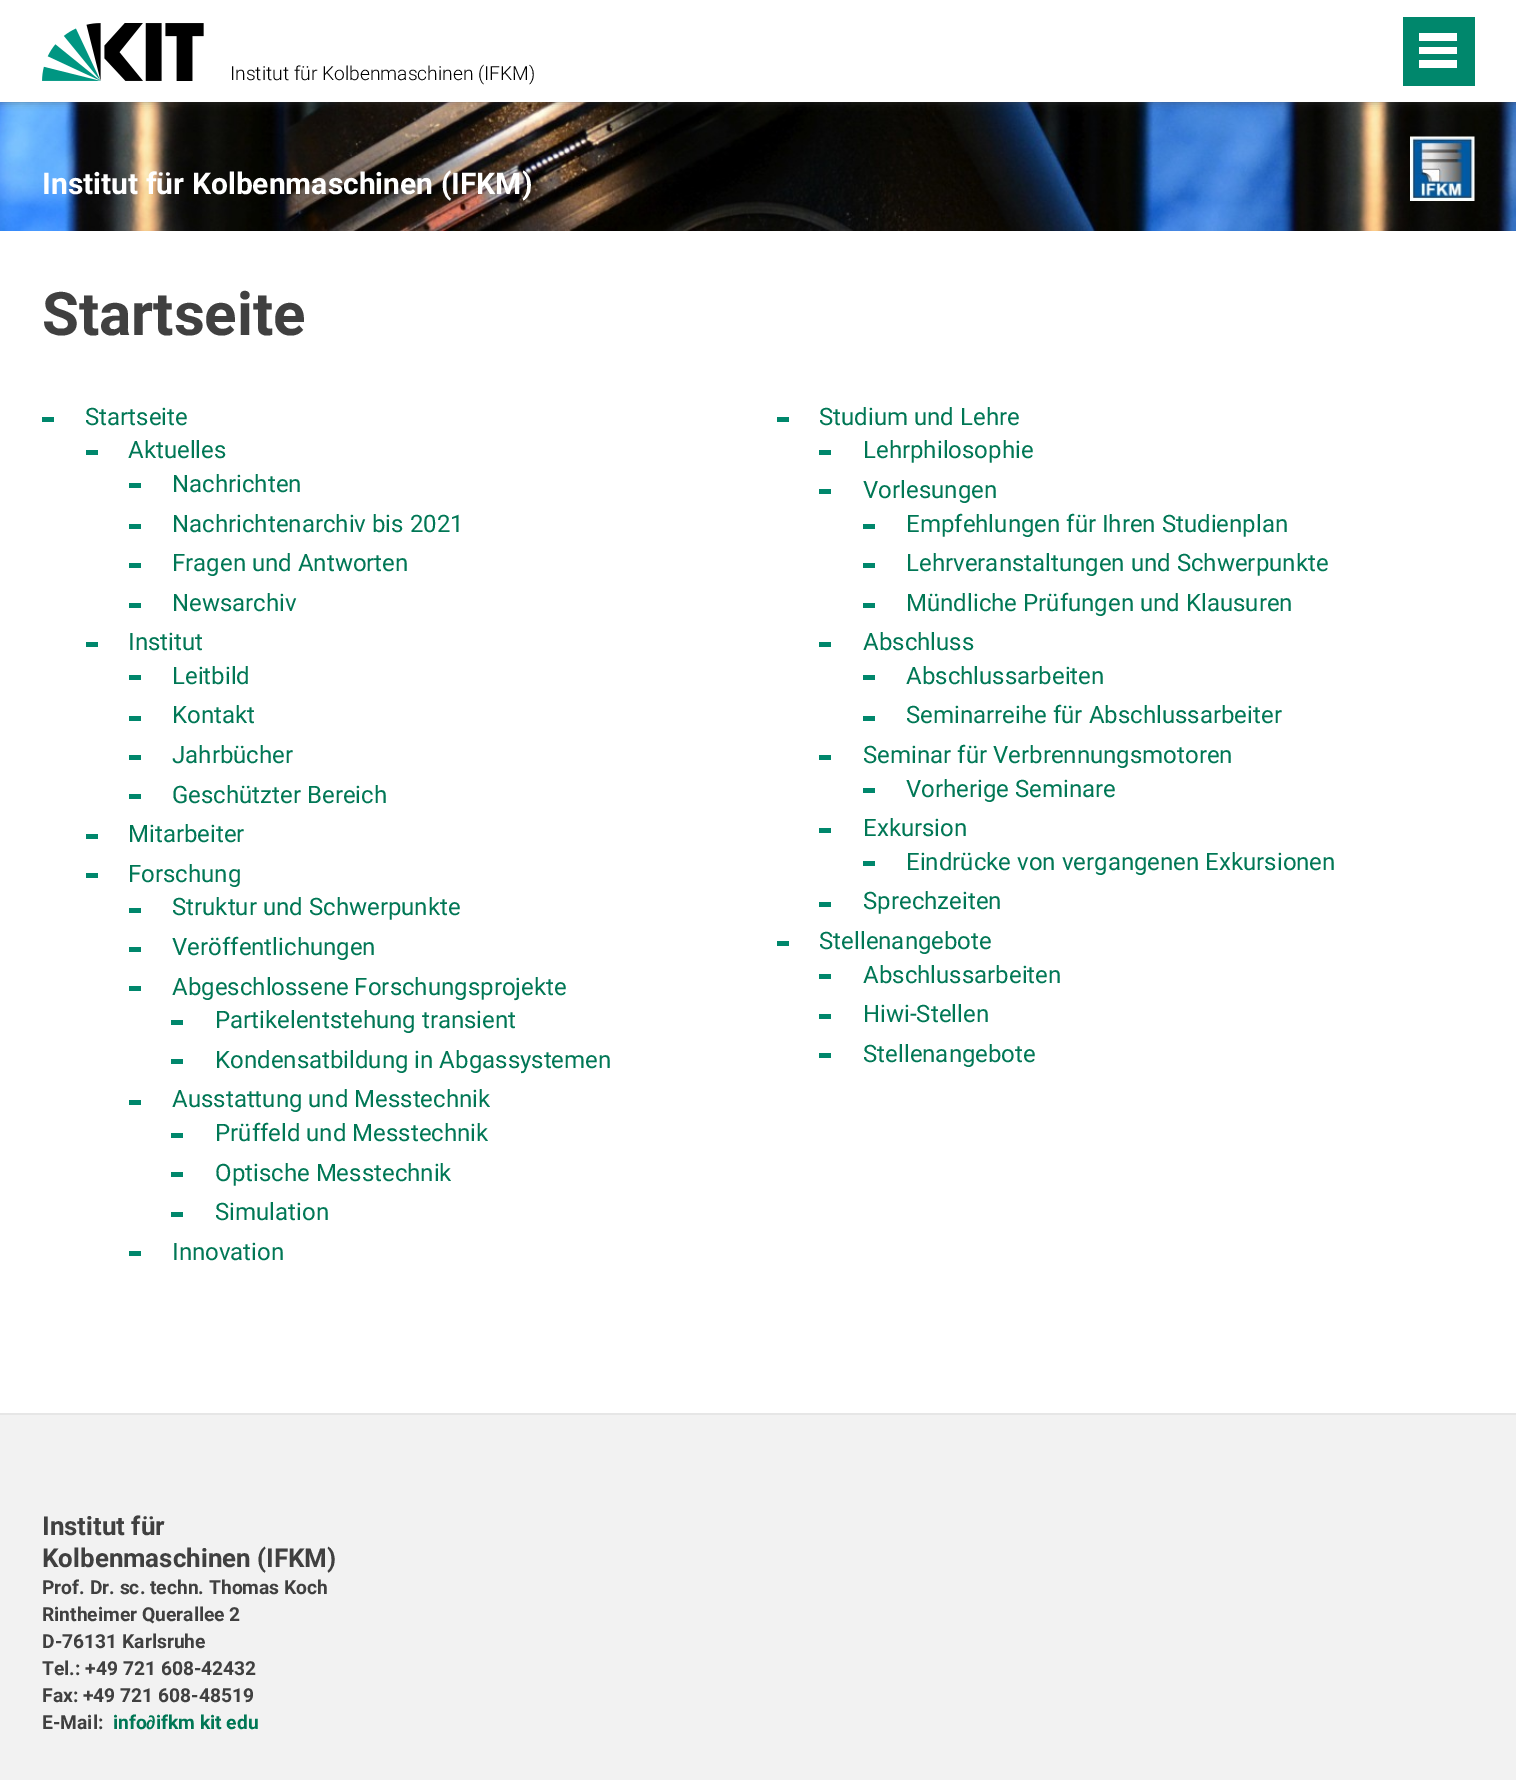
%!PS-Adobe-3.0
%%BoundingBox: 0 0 1516 1780
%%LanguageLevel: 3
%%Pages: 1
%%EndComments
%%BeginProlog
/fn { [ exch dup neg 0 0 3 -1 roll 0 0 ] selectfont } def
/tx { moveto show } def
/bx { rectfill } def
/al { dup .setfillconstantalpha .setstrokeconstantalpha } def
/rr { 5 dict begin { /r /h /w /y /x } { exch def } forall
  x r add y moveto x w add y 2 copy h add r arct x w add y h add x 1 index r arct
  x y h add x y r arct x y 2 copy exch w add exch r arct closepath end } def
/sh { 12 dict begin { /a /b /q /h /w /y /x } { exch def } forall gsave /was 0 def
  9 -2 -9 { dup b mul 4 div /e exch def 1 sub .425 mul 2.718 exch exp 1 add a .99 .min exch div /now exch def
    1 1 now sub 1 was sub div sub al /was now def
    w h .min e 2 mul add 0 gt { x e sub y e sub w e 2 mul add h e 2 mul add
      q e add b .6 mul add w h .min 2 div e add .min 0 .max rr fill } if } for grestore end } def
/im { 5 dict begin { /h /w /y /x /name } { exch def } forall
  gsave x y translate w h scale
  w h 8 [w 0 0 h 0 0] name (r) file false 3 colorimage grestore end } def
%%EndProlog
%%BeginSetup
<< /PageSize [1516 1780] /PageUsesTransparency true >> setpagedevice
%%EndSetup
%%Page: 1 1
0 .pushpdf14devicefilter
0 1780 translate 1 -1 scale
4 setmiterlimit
1 setgray
0 0 1516 1780 bx
(image1.raw) 0 102 1516 129 im
0.251 setgray
0 0 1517 102 0 4 0.5 sh
1 setgray
0 0 1516 102 bx
(image0.raw) 42 23 162 58 im
/Roboto-Light 19.25 fn
0 setgray
(Institut für Kolbenmaschinen \(IFKM\)) 230 80 tx
0 0.529 0.424 setrgbcolor
1403 17 72 69 bx
1 setgray
1419 60 38 8 bx
1419 47 38 7 bx
1419 33 38 8 bx
/Roboto-Bold 30 fn
(Institut für Kolbenmaschinen \(IFKM\)) 42 194 tx
(image2.raw) 1410 136 65 65 im
/Roboto-Bold 60 fn
0.251 setgray
(Startseite) 42 335 tx
0 0.529 0.424 setrgbcolor
42 417 12 5 bx
/Roboto-Regular 24 fn
0 0.467 0.333 setrgbcolor
(Startseite) 85 425 tx
0 0.529 0.424 setrgbcolor
86 450 12 5 bx
0 0.467 0.333 setrgbcolor
(Aktuelles) 128 458 tx
0 0.529 0.424 setrgbcolor
129 483 12 5 bx
0 0.467 0.333 setrgbcolor
(Nachrichten) 172 492 tx
0 0.529 0.424 setrgbcolor
129 524 12 5 bx
0 0.467 0.333 setrgbcolor
(Nachrichtenarchiv bis 2021) 172 532 tx
0 0.529 0.424 setrgbcolor
129 563 12 5 bx
0 0.467 0.333 setrgbcolor
(Fragen und Antworten) 172 571 tx
0 0.529 0.424 setrgbcolor
129 603 12 5 bx
0 0.467 0.333 setrgbcolor
(Newsarchiv) 172 611 tx
0 0.529 0.424 setrgbcolor
86 642 12 5 bx
0 0.467 0.333 setrgbcolor
(Institut) 128 650 tx
0 0.529 0.424 setrgbcolor
129 675 12 5 bx
0 0.467 0.333 setrgbcolor
(Leitbild) 172 684 tx
0 0.529 0.424 setrgbcolor
129 716 12 5 bx
0 0.467 0.333 setrgbcolor
(Kontakt) 172 723 tx
0 0.529 0.424 setrgbcolor
129 755 12 5 bx
0 0.467 0.333 setrgbcolor
(Jahrbücher) 172 763 tx
0 0.529 0.424 setrgbcolor
129 794 12 5 bx
0 0.467 0.333 setrgbcolor
(Geschützter Bereich) 172 803 tx
0 0.529 0.424 setrgbcolor
86 834 12 5 bx
0 0.467 0.333 setrgbcolor
(Mitarbeiter) 128 842 tx
0 0.529 0.424 setrgbcolor
86 873 12 5 bx
0 0.467 0.333 setrgbcolor
(Forschung) 128 882 tx
0 0.529 0.424 setrgbcolor
129 908 12 5 bx
0 0.467 0.333 setrgbcolor
(Struktur und Schwerpunkte) 172 915 tx
0 0.529 0.424 setrgbcolor
129 947 12 5 bx
0 0.467 0.333 setrgbcolor
(Veröffentlichungen) 172 955 tx
0 0.529 0.424 setrgbcolor
129 986 12 5 bx
0 0.467 0.333 setrgbcolor
(Abgeschlossene Forschungsprojekte) 172 995 tx
0 0.529 0.424 setrgbcolor
171 1020 12 5 bx
0 0.467 0.333 setrgbcolor
(Partikelentstehung transient) 215 1028 tx
0 0.529 0.424 setrgbcolor
171 1059 12 5 bx
0 0.467 0.333 setrgbcolor
(Kondensatbildung in Abgassystemen) 215 1068 tx
0 0.529 0.424 setrgbcolor
129 1100 12 5 bx
0 0.467 0.333 setrgbcolor
(Ausstattung und Messtechnik) 172 1107 tx
0 0.529 0.424 setrgbcolor
171 1133 12 5 bx
0 0.467 0.333 setrgbcolor
(Prüffeld und Messtechnik) 215 1141 tx
0 0.529 0.424 setrgbcolor
171 1172 12 5 bx
0 0.467 0.333 setrgbcolor
(Optische Messtechnik) 215 1181 tx
0 0.529 0.424 setrgbcolor
171 1212 12 5 bx
0 0.467 0.333 setrgbcolor
(Simulation) 215 1220 tx
0 0.529 0.424 setrgbcolor
129 1251 12 5 bx
0 0.467 0.333 setrgbcolor
(Innovation) 172 1260 tx
0 0.529 0.424 setrgbcolor
777 417 12 5 bx
0 0.467 0.333 setrgbcolor
(Studium und Lehre) 819 425 tx
0 0.529 0.424 setrgbcolor
819 450 12 5 bx
0 0.467 0.333 setrgbcolor
(Lehrphilosophie) 863 458 tx
0 0.529 0.424 setrgbcolor
819 489 12 5 bx
0 0.467 0.333 setrgbcolor
(Vorlesungen) 863 498 tx
0 0.529 0.424 setrgbcolor
863 524 12 5 bx
0 0.467 0.333 setrgbcolor
(Empfehlungen für Ihren Studienplan) 906 532 tx
0 0.529 0.424 setrgbcolor
863 563 12 5 bx
0 0.467 0.333 setrgbcolor
(Lehrveranstaltungen und Schwerpunkte) 906 571 tx
0 0.529 0.424 setrgbcolor
863 603 12 5 bx
0 0.467 0.333 setrgbcolor
(Mündliche Prüfungen und Klausuren) 906 611 tx
0 0.529 0.424 setrgbcolor
819 642 12 5 bx
0 0.467 0.333 setrgbcolor
(Abschluss) 863 650 tx
0 0.529 0.424 setrgbcolor
863 675 12 5 bx
0 0.467 0.333 setrgbcolor
(Abschlussarbeiten) 906 684 tx
0 0.529 0.424 setrgbcolor
863 716 12 5 bx
0 0.467 0.333 setrgbcolor
(Seminarreihe für Abschlussarbeiter) 906 723 tx
0 0.529 0.424 setrgbcolor
819 755 12 5 bx
0 0.467 0.333 setrgbcolor
(Seminar für Verbrennungsmotoren) 863 763 tx
0 0.529 0.424 setrgbcolor
863 788 12 5 bx
0 0.467 0.333 setrgbcolor
(Vorherige Seminare) 906 797 tx
0 0.529 0.424 setrgbcolor
819 828 12 5 bx
0 0.467 0.333 setrgbcolor
(Exkursion) 863 836 tx
0 0.529 0.424 setrgbcolor
863 861 12 5 bx
0 0.467 0.333 setrgbcolor
(Eindrücke von vergangenen Exkursionen) 906 870 tx
0 0.529 0.424 setrgbcolor
819 902 12 5 bx
0 0.467 0.333 setrgbcolor
(Sprechzeiten) 863 909 tx
0 0.529 0.424 setrgbcolor
777 941 12 5 bx
0 0.467 0.333 setrgbcolor
(Stellenangebote) 819 949 tx
0 0.529 0.424 setrgbcolor
819 974 12 5 bx
0 0.467 0.333 setrgbcolor
(Abschlussarbeiten) 863 983 tx
0 0.529 0.424 setrgbcolor
819 1014 12 5 bx
0 0.467 0.333 setrgbcolor
(Hiwi-Stellen) 863 1022 tx
0 0.529 0.424 setrgbcolor
819 1053 12 5 bx
0 0.467 0.333 setrgbcolor
(Stellenangebote) 863 1062 tx
0.949 setgray
0 1415 1516 365 bx
0.902 setgray
0 1413 1516 2 bx
/Roboto-Bold 25.9 fn
0.251 setgray
(Institut für) 42 1535 tx
(Kolbenmaschinen \(IFKM\)) 42 1567 tx
/Roboto-Bold 19.25 fn
(Prof. Dr. sc. techn. Thomas Koch) 42 1594 tx
(Rintheimer Querallee 2) 42 1621 tx
(D-76131 Karlsruhe) 42 1648 tx
(Tel.: +49 721 608-42432) 42 1675 tx
(Fax: +49 721 608-48519) 42 1702 tx
(E-Mail:) 42 1729 tx
0 0.467 0.333 setrgbcolor
(info) 113 1729 tx
/LiberationSans-Bold 19.25 fn
(∂) 146 1729 tx
/Roboto-Bold 19.25 fn
(ifkm kit edu) 156 1729 tx
.poppdf14devicefilter showpage
%%EOF
